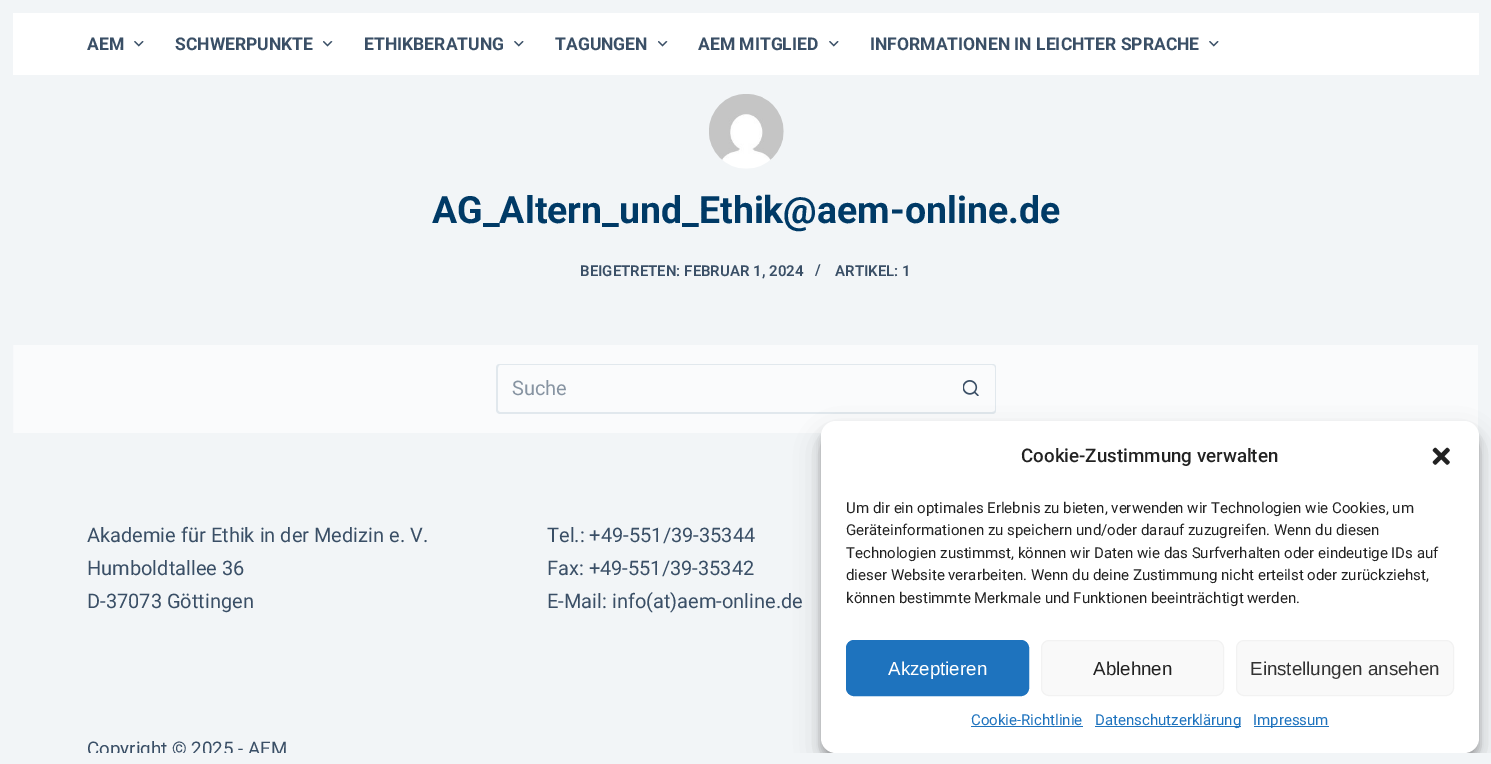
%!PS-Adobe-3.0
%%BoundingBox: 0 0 1491 764
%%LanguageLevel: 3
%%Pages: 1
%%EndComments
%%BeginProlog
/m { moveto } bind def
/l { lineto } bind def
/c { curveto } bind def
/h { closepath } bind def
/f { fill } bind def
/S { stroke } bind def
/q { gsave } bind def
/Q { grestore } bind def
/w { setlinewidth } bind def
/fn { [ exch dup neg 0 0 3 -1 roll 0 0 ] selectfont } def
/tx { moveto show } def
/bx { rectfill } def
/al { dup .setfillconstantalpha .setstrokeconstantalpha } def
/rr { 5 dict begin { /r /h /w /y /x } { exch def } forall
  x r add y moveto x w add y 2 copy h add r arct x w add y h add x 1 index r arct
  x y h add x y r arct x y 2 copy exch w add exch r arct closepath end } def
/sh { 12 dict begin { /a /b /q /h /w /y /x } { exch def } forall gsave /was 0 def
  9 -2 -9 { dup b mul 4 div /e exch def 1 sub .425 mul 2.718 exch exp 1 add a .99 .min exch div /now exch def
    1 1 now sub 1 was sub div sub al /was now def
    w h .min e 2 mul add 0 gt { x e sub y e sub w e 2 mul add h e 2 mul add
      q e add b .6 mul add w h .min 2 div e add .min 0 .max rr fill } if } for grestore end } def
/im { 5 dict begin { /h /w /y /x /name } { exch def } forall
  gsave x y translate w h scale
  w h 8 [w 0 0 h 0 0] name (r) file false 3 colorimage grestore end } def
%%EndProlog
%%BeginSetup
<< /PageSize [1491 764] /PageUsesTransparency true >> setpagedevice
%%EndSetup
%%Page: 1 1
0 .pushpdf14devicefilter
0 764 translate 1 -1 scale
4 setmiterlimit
0.98 0.984 0.988 setrgbcolor
0 0 1491 764 bx
0.949 0.961 0.969 setrgbcolor
13 w
6.5 -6.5 1478 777 rectstroke
13 0 1465 13 bx
1 setgray
13 13 1466 62 bx
/Roboto-Bold 17.5 fn
0.227 0.31 0.4 setrgbcolor
(AEM) 87 50 tx
(image0.raw) 134 41 10 6 im
(SCHWERPUNKTE) 175 50 tx
(image1.raw) 323 41 10 6 im
(ETHIKBERATUNG) 364 50 tx
(image0.raw) 514 41 10 6 im
(TAGUNGEN) 555 50 tx
(image1.raw) 658 41 10 6 im
(AEM MITGLIED) 698 50 tx
(image0.raw) 829 41 10 6 im
(INFORMATIONEN IN LEICHTER SPRACHE) 870 50 tx
(image0.raw) 1209 41 10 6 im
0.949 0.961 0.969 setrgbcolor
13 75 1465 270 bx
(image2.raw) 709 94 75 75 im
/Roboto-Bold 37.5 fn
0 0.227 0.4 setrgbcolor
(AG_Altern_und_Ethik@aem-online.de) 432 223 tx
/Roboto-SemiBold 15 fn
0.227 0.31 0.4 setrgbcolor
(BEIGETRETEN: FEBRUAR 1, 2024) 580 276 tx
(/) 815 275 tx
(ARTIKEL: 1) 835 276 tx
0.882 0.91 0.929 setrgbcolor
500 364 m 946 364 l 946 414 l 500 414 l 498 414 496 412 496 410 c 496 368 l 496 365 498 364 500 364 c h 500 365 m 946 365 l 946 412 l 500 412 l 499 412 498 411 498 410 c 498 368 l 498 366 499 365 500 365 c h eofill
/Roboto-Regular 20 fn
0.529 0.58 0.635 setrgbcolor
(Suche) 512 395 tx
0.882 0.91 0.929 setrgbcolor
946 364 m 992 364 l 995 364 996 365 996 368 c 996 410 l 996 412 995 414 992 414 c 946 414 l h 946 365 m 992 365 l 994 365 995 366 995 368 c 995 410 l 995 411 994 412 992 412 c 946 412 l h eofill
(image3.raw) 963 380 16 16 im
0.949 0.961 0.969 setrgbcolor
13 433 1465 320 bx
0.227 0.31 0.4 setrgbcolor
(Akademie für Ethik in der Medizin e. V.) 87 542 tx
(Humboldtallee 36) 87 575 tx
(D-37073 Göttingen) 87 608 tx
(Tel.: +49-551/39-35344) 547 542 tx
(Fax: +49-551/39-35342) 547 575 tx
(E-Mail: info\(at\)aem-online.de) 547 608 tx
/Roboto-Regular 18.75 fn
(Copyright © 2025 - AEM) 87 755 tx
0 setgray
821 429 658 331 15 4 0.23 sh
821 434 658 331 15 12.5 0.19 sh
1 setgray
821 421 658 332 15 rr f
/Roboto-Medium 18.75 fn
0.133 setgray
(Cookie-Zustimmung verwalten) 1021 462 tx
(image4.raw) 1432 447 18 18 im
/Roboto-Regular 15 fn
(Um dir ein optimales Erlebnis zu bieten, verwenden wir Technologien wie Cookies, um) 846 513 tx
(Geräteinformationen zu speichern und/oder darauf zuzugreifen. Wenn du diesen) 846 535 tx
(Technologien zustimmst, können wir Daten wie das Surfverhalten oder eindeutige IDs auf) 846 558 tx
(dieser Website verarbeiten. Wenn du deine Zustimmung nicht erteilst oder zurückziehst,) 846 580 tx
(können bestimmte Merkmale und Funktionen beeinträchtigt werden.) 846 603 tx
0.118 0.451 0.745 setrgbcolor
846.5 640.5 182 55 7.5 rr q f Q
1 w
S
/LiberationSans-Regular 18.75 fn
1 setgray
(Akzeptieren) 888 675 tx
0.976 setgray
1041.5 640.5 182 55 7.5 rr q f Q
0.949 setgray
S
0.133 setgray
(Ablehnen) 1093 675 tx
0.976 setgray
1236.5 640.5 217 55 7.5 rr q f Q
0.949 setgray
S
0.2 setgray
(Einstellungen ansehen) 1250 675 tx
/Roboto-Regular 15 fn
0.118 0.451 0.745 setrgbcolor
(Cookie-Richtlinie) 971 725 tx
971 726 112 1 bx
1095 726 146 1 bx
(Datenschutzerklärung) 1095 725 tx
1254 726 75 1 bx
(Impressum) 1253 725 tx
0.949 0.961 0.969 setrgbcolor
13 753 1478 11 bx
.poppdf14devicefilter showpage
%%EOF
